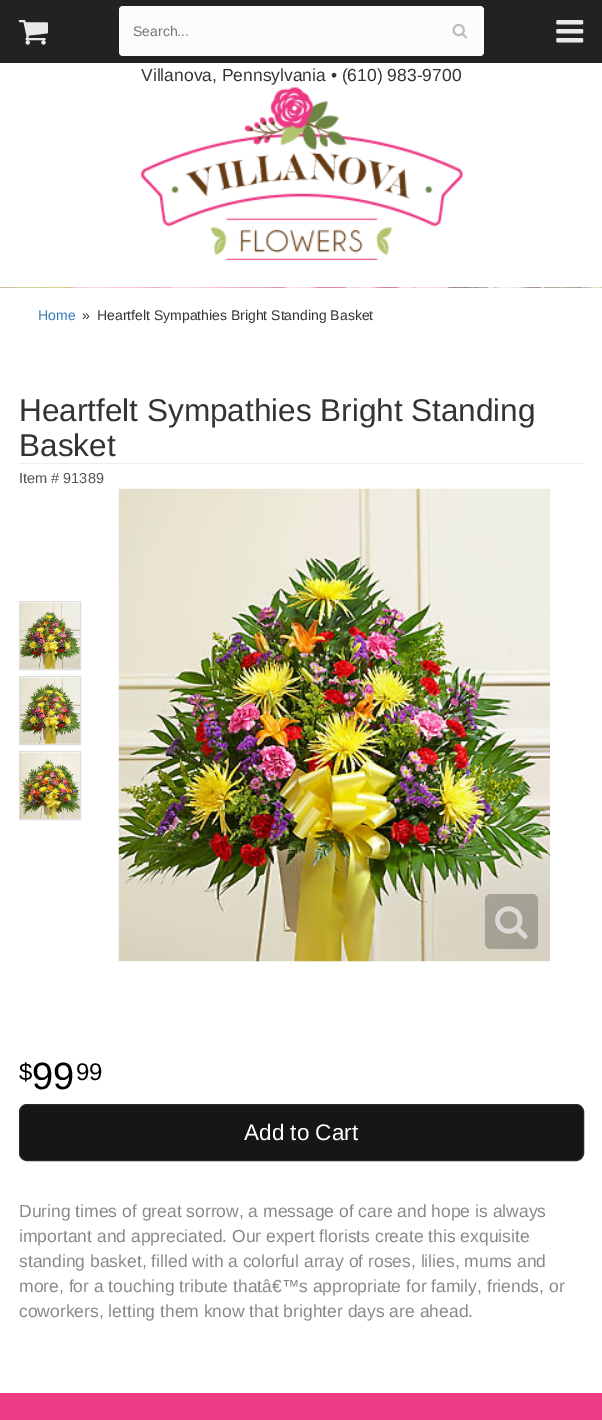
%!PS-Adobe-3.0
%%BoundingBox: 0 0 602 1420
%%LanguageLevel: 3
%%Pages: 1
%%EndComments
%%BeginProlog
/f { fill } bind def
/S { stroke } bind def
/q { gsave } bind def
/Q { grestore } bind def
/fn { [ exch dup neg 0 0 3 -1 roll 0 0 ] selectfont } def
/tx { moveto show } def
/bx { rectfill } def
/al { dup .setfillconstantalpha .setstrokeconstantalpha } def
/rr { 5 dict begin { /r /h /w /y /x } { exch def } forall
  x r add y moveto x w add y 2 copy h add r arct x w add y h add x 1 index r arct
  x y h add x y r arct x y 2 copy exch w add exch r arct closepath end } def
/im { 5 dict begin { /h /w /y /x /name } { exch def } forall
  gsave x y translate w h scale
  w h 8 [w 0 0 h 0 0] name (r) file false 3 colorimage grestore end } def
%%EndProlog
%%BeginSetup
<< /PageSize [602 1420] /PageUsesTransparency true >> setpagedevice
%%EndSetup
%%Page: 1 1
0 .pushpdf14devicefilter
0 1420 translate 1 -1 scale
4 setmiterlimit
1 setgray
0 0 602 1420 bx
0.133 setgray
0 0 602 63 bx
(image0.raw) 18 20 30 25 im
0.988 setgray
119 6 365 50 4 rr f
/LiberationSans-Regular 14 fn
0.459 setgray
(Search...) 133 36 tx
(image1.raw) 452 23 16 16 im
(image2.raw) 556 20 28 23 im
(image3.raw) 141 87 322 173 im
/LiberationSans-Regular 17.5 fn
0.2 setgray
(Villanova, Pennsylvania • \(610\) 983-9700) 141 81 tx
(image4.raw) 0 287 602 1 im
/LiberationSans-Regular 14 fn
0.2 0.478 0.718 setrgbcolor
(Home) 38 320 tx
0.2 setgray
(») 82 320 tx
(Heartfelt Sympathies Bright Standing Basket) 97 320 tx
0.933 setgray
19 463 565 1 bx
/LiberationSans-Regular 31.5 fn
0.2 setgray
(Heartfelt Sympathies Bright Standing) 19 421 tx
(Basket) 19 456 tx
/LiberationSans-Regular 14.5 fn
0.333 setgray
(Item # 91389) 19 483 tx
0.867 setgray
19.5 601.5 61 68 rectstroke
(image5.raw) 20 602 60 67 im
19.5 676.5 61 68 rectstroke
(image6.raw) 20 677 60 67 im
19.5 751.5 61 68 rectstroke
(image7.raw) 20 752 60 67 im
(image8.raw) 118 488 432 474 im
0.24 al
0 setgray
485 894 53 55 6 rr f
1 al
(image9.raw) 495 906 33 33 im
/LiberationSans-Regular 24 fn
($) 19 1080 tx
/LiberationSans-Regular 38 fn
(99) 32 1089 tx
/LiberationSans-Regular 24 fn
(99) 76 1080 tx
0.086 setgray
19.5 1104.5 564 56 7.5 rr q f Q
0.161 setgray
S
/LiberationSans-Regular 22.5 fn
1 setgray
(Add to Cart) 244 1140 tx
/LiberationSans-Regular 17.5 fn
0.533 setgray
(During times of great sorrow, a message of care and hope is always) 19 1217 tx
(important and appreciated. Our expert florists create this exquisite) 19 1242 tx
(standing basket, filled with a colorful array of roses, lilies, mums and) 19 1267 tx
(more, for a touching tribute thatâ€™s appropriate for family, friends, or) 19 1292 tx
(coworkers, letting them know that brighter days are ahead.) 19 1317 tx
0.925 0.231 0.518 setrgbcolor
0 1393 602 27 bx
.poppdf14devicefilter showpage
%%EOF
